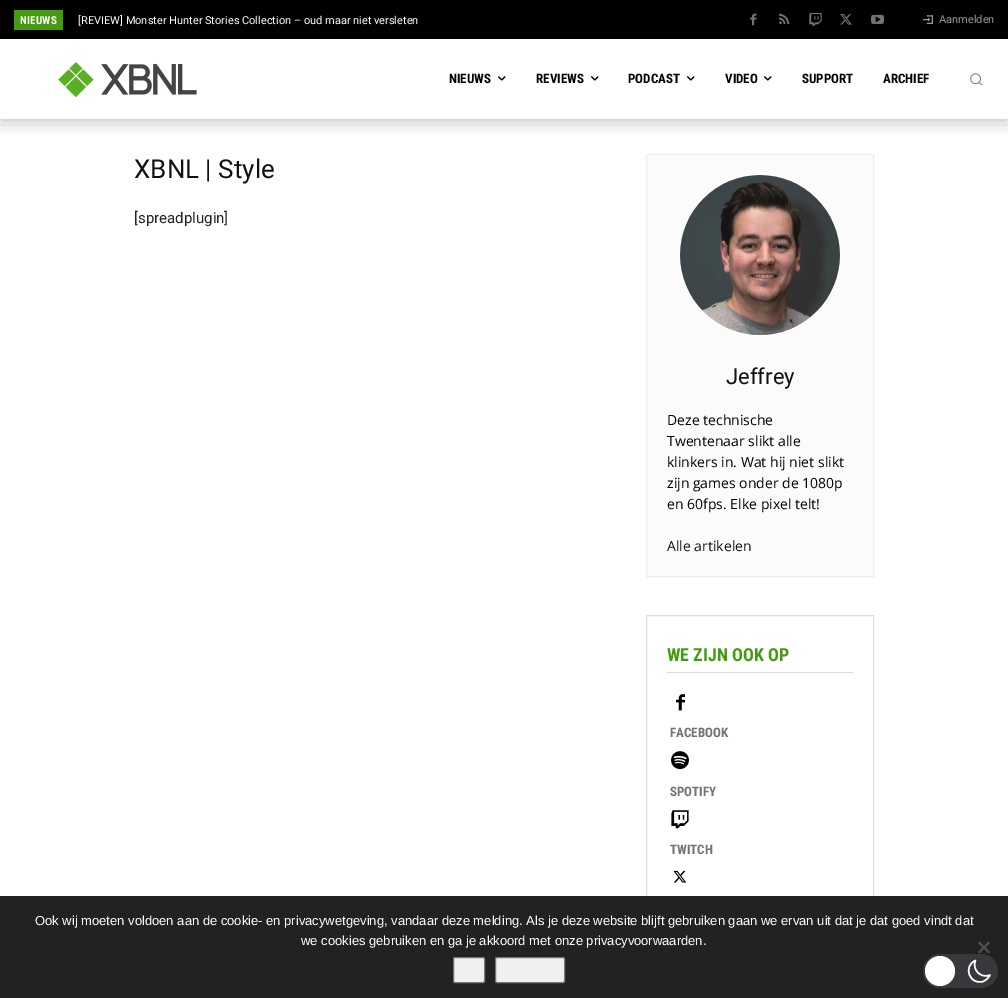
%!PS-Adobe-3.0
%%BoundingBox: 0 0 1008 998
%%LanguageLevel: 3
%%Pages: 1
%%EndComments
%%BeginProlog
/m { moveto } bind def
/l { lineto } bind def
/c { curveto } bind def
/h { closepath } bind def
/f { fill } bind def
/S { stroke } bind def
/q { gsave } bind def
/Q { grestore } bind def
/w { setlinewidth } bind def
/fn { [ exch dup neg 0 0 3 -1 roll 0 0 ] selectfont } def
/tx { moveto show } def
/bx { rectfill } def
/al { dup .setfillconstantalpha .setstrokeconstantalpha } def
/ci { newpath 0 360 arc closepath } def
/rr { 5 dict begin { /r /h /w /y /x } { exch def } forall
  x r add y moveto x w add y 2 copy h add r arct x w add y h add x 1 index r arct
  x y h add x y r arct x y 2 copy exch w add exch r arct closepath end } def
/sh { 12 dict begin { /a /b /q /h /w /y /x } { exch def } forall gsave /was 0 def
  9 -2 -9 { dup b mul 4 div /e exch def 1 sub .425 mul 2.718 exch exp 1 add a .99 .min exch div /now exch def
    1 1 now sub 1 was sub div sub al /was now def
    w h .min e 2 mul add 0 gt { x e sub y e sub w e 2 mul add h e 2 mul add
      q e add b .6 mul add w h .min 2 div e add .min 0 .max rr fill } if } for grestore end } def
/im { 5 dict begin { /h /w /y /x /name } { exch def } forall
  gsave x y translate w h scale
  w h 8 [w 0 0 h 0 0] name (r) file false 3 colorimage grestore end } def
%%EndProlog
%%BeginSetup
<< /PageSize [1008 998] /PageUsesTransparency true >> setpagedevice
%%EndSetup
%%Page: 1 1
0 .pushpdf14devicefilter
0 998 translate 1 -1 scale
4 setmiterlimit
1 setgray
0 0 1008 998 bx
q
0 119 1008 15 rectclip
0.039 setgray
0 0 1008 119 0 10 0.31 sh
Q
0 setgray
0 0 1008 39 bx
0.271 0.608 0.059 setrgbcolor
14 10 49 20 bx
/RobotoCondensed-Bold 11 fn
1 setgray
20 24 m 0.25 0 (NIEUWS) ashow
/Roboto-Regular 11 fn
([REVIEW] Monster Hunter Stories Collection – oud maar niet versleten) 78 24 tx
(image0.raw) 750 13 7 13 im
(image1.raw) 779 13 11 12 im
(image2.raw) 809 12 13 14 im
(image3.raw) 840 14 12 11 im
(image4.raw) 871 14 13 11 im
(image5.raw) 923 15 10 9 im
0.6 setgray
(Aanmelden) 939 23 tx
(image6.raw) 58 62 139 35 im
/RobotoCondensed-Bold 13 fn
0 setgray
(NIEUWS) 449 83 tx
(image7.raw) 498 76 8 5 im
(REVIEWS) 536 83 tx
(image7.raw) 591 76 8 5 im
(PODCAST) 628 83 tx
(image7.raw) 687 76 8 5 im
(VIDEO) 725 83 tx
(image7.raw) 764 76 8 5 im
(SUPPORT) 802 83 tx
(ARCHIEF) 883 83 tx
(image8.raw) 970 73 13 13 im
/Roboto-Regular 26 fn
0.067 setgray
(XBNL | Style) 134 178 tx
/Roboto-Regular 15 fn
0.133 setgray
([spreadplugin]) 134 223 tx
0.984 setgray
646.5 154.5 m 873.5 154.5 l 873.5 576.5 l 646.5 576.5 l h q f Q
0.933 setgray
S
(image9.raw) 680 175 160 160 im
/Roboto-Regular 22 fn
0.067 setgray
(Jeffrey) 726 384 tx
/OpenSans-Regular 14 fn
0 setgray
(Deze technische) 667 425 tx
(Twentenaar slikt alle) 667 446 tx
(klinkers in. Wat hij niet slikt) 667 467 tx
(zijn games onder de 1080p) 667 488 tx
(en 60fps. Elke pixel telt!) 667 509 tx
0.067 setgray
(Alle artikelen) 667 551 tx
0.867 setgray
646.5 615.5 227 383 rectstroke
/RobotoCondensed-Bold 18 fn
0.271 0.608 0.059 setrgbcolor
(WE ZIJN OOK OP) 667 661 tx
0.867 setgray
667 672 186 1 bx
(image10.raw) 676 694 9 17 im
/RobotoCondensed-Bold 13 fn
0.447 0.447 0.467 setrgbcolor
(FACEBOOK) 670 737 tx
(image11.raw) 671 751 18 19 im
(SPOTIFY) 670 796 tx
(image12.raw) 671 810 18 19 im
(TWITCH) 670 854 tx
(image13.raw) 673 870 14 13 im
0.133 setgray
0 896 1008 102 bx
/LiberationSans-Regular 13 fn
1 setgray
(Ook wij moeten voldoen aan de cookie- en privacywetgeving, vandaar deze melding. Als je deze website blijft gebruiken gaan we ervan uit dat je dat goed vindt dat) 35 925 tx
(we cookies gebruiken en ga je akkoord met onze privacyvoorwaarden.) 301 945 tx
0.318 setgray
988.5 941.5 m 990 943 l 979.5 953.5 l 978 952 l h f
978 943 m 979.5 941.5 l 990 952 l 988.5 953.5 l h f
0.937 setgray
453.5 957.5 31 25 1.5 rr q f Q
0.463 setgray
S
0.937 setgray
495.5 957.5 69 25 1.5 rr q f Q
0.463 setgray
S
0.224 0.224 0.239 setrgbcolor
923 954 75 34 17 rr f
1 setgray
940 971 15 ci f
1.5 w
1 setlinecap
1 setlinejoin
990 975 m 981 979 971.5 969.5 975.5 960.5 c 962.5 966 969.5 985.5 983 981.5 c 986 980.5 988.5 978 990 975 c h S
.poppdf14devicefilter showpage
%%EOF
